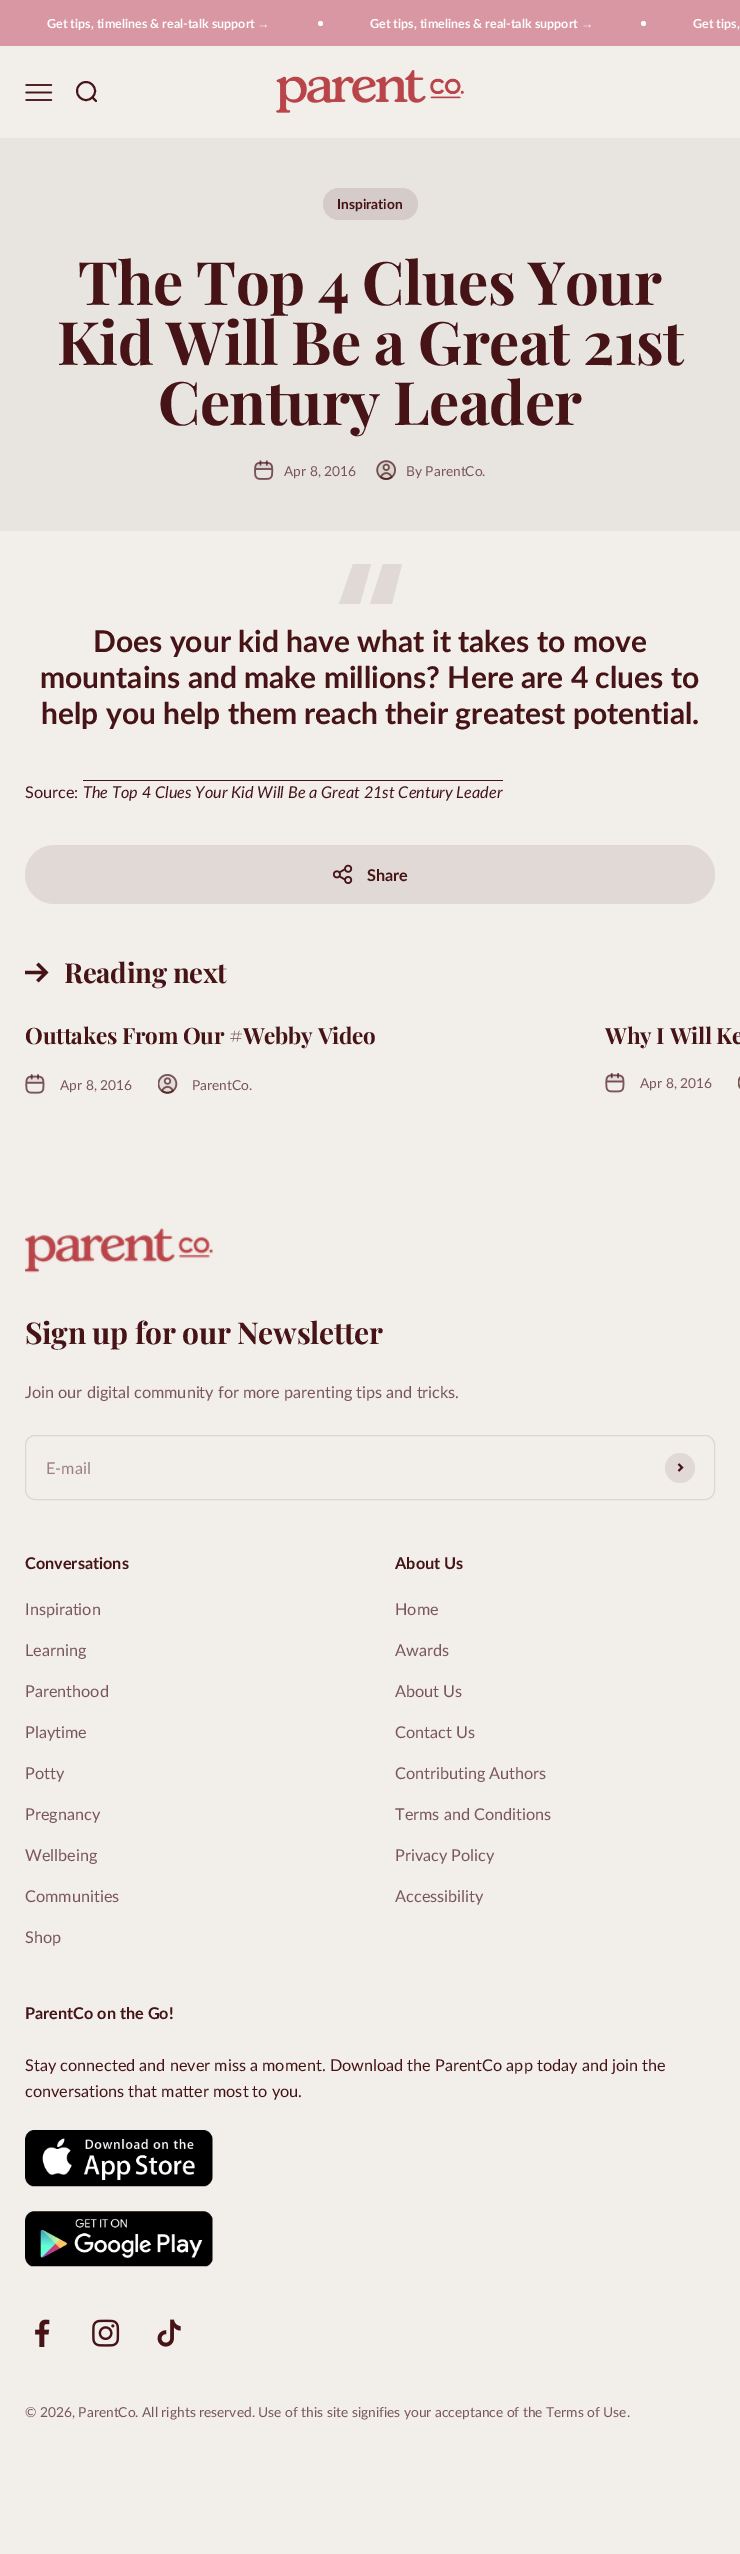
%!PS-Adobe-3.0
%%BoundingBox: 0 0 740 2554
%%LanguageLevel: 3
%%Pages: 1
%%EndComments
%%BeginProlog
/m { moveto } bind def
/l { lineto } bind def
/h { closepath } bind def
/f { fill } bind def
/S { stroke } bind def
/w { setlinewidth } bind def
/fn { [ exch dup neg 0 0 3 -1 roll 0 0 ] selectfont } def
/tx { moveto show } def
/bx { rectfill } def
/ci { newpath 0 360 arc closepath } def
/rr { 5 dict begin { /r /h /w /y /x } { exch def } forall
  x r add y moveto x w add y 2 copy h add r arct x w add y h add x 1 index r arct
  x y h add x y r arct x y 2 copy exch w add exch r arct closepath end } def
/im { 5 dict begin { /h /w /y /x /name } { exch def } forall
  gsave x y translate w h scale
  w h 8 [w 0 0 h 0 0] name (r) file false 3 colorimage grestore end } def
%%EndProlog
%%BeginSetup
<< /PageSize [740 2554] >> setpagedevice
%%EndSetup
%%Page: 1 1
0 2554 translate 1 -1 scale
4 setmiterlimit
0.949 0.937 0.922 setrgbcolor
0 0 740 2554 bx
0.851 0.588 0.639 setrgbcolor
0 0 740 46 bx
/Lato-Bold 12.5 fn
1 setgray
(Get tips, timelines & real-talk support) 47 28 tx
/LiberationSans-Bold 12.5 fn
(→) 257 28 tx
320.5 23.5 2.5 ci f
/Lato-Bold 12.5 fn
(Get tips, timelines & real-talk support) 370 28 tx
/LiberationSans-Bold 12.5 fn
(→) 581 28 tx
643.5 23.5 2.5 ci f
/Lato-Bold 12.5 fn
(Get tips,) 693 28 tx
(image0.raw) 25 84 28 17 im
0.275 0.078 0.09 setrgbcolor
1.9 w
86 91 9 ci S
1 setlinecap
1 setlinejoin
92.5 97.5 m 96 101 l S
(image1.raw) 276 70 188 43 im
0.91 0.898 0.882 setrgbcolor
0 138 740 393 bx
0.835 0.8 0.788 setrgbcolor
323 188 95 32 16 rr f
/Lato-Bold 13.75 fn
0.275 0.078 0.09 setrgbcolor
(Inspiration) 337 209 tx
/PlayfairDisplay-Bold 60 fn
78 305 m -0.6 0 (The Top 4 Clues Your) ashow
57 365 m -0.6 0 (Kid Will Be a Great 21st) ashow
158 425 m -0.6 0 (Century Leader) ashow
(image2.raw) 254 460 20 20 im
/Lato-Regular 13.75 fn
0.478 0.337 0.341 setrgbcolor
(Apr 8, 2016) 284 476 tx
(image3.raw) 376 460 20 20 im
(By ParentCo.) 406 476 tx
0.882 0.851 0.839 setrgbcolor
392 604 m 370 604 l 383 564 l 402 564 l h 360 604 m 339 604 l 353 564 l 371 564 l h f
/Lato-Bold 30 fn
0.275 0.078 0.09 setrgbcolor
(Does your kid have what it takes to move) 93 652 tx
(mountains and make millions? Here are 4 clues to) 40 688 tx
(help you help them reach their greatest potential.) 41 724 tx
/Lato-Regular 16.25 fn
(Source:) 25 798 tx
/Lato-Italic 16.25 fn
(The Top 4 Clues Your Kid Will Be a Great 21st Century Leader) 83 798 tx
83 780 420 1 bx
0.882 0.851 0.839 setrgbcolor
25 845 690 59 29.5 rr f
(image4.raw) 333 864 20 21 im
/Lato-Bold 16.25 fn
0.275 0.078 0.09 setrgbcolor
(Share) 367 881 tx
(image5.raw) 25 962 24 21 im
/PlayfairDisplay-Bold 27.5 fn
64 983 m -0.25 0 (Reading next) ashow
/PlayfairDisplay-Bold 22.5 fn
25 1044 m -0.25 0 (Outtakes From Our #Webby Video) ashow
(image6.raw) 25 1074 20 20 im
/Lato-Regular 13.75 fn
0.478 0.337 0.341 setrgbcolor
(Apr 8, 2016) 60 1090 tx
(image7.raw) 158 1074 20 20 im
(ParentCo.) 192 1090 tx
/PlayfairDisplay-Bold 22.5 fn
0.275 0.078 0.09 setrgbcolor
605 1044 m -0.25 0 (Why I Will Ke) ashow
(image8.raw) 605 1073 20 20 im
/Lato-Regular 13.75 fn
0.478 0.337 0.341 setrgbcolor
(Apr 8, 2016) 640 1088 tx
(image9.raw) 738 1076 2 13 im
(image10.raw) 25 1228 188 45 im
/PlayfairDisplay-Bold 30 fn
0.275 0.078 0.09 setrgbcolor
25 1344 m -0.3 0 (Sign up for our Newsletter) ashow
/Lato-Regular 16.25 fn
0.478 0.337 0.341 setrgbcolor
(Join our digital community for more parenting tips and tricks.) 25 1398 tx
0.867 0.835 0.824 setrgbcolor
1 w
0 setlinecap
0 setlinejoin
25.5 1435.5 689 64 9.5 rr S
0.612 0.51 0.506 setrgbcolor
(E-mail) 46 1474 tx
0.882 0.851 0.839 setrgbcolor
680 1468 15 ci f
0.275 0.078 0.09 setrgbcolor
1.9 w
678.5 1471 m 682 1467.5 l 678.5 1464 l S
/Lato-Bold 16.25 fn
(Conversations) 25 1569 tx
/Lato-Regular 16.25 fn
0.478 0.337 0.341 setrgbcolor
(Inspiration) 25 1615 tx
(Learning) 25 1656 tx
(Parenthood) 25 1697 tx
(Playtime) 25 1738 tx
(Potty) 25 1779 tx
(Pregnancy) 25 1820 tx
(Wellbeing) 25 1861 tx
(Communities) 25 1902 tx
(Shop) 25 1943 tx
/Lato-Bold 16.25 fn
0.275 0.078 0.09 setrgbcolor
(About Us) 395 1569 tx
/Lato-Regular 16.25 fn
0.478 0.337 0.341 setrgbcolor
(Home) 395 1615 tx
(Awards) 395 1656 tx
(About Us) 395 1697 tx
(Contact Us) 395 1738 tx
(Contributing Authors) 395 1779 tx
(Terms and Conditions) 395 1820 tx
(Privacy Policy) 395 1861 tx
(Accessibility) 395 1902 tx
/Lato-Bold 16.25 fn
0.275 0.078 0.09 setrgbcolor
(ParentCo on the Go!) 25 2019 tx
/Lato-Regular 16.25 fn
(Stay connected and never miss a moment. Download the ParentCo app today and join the) 25 2071 tx
(conversations that matter most to you.) 25 2097 tx
(image11.raw) 25 2130 188 57 im
(image12.raw) 25 2211 188 56 im
(image13.raw) 35 2319 15 28 im
(image14.raw) 92 2319 28 28 im
(image15.raw) 157 2319 24 28 im
/Lato-Regular 13.75 fn
0.478 0.337 0.341 setrgbcolor
(© 2026, ParentCo. All rights reserved. Use of this site signifies your acceptance of the Terms of Use.) 25 2417 tx
showpage
%%EOF
